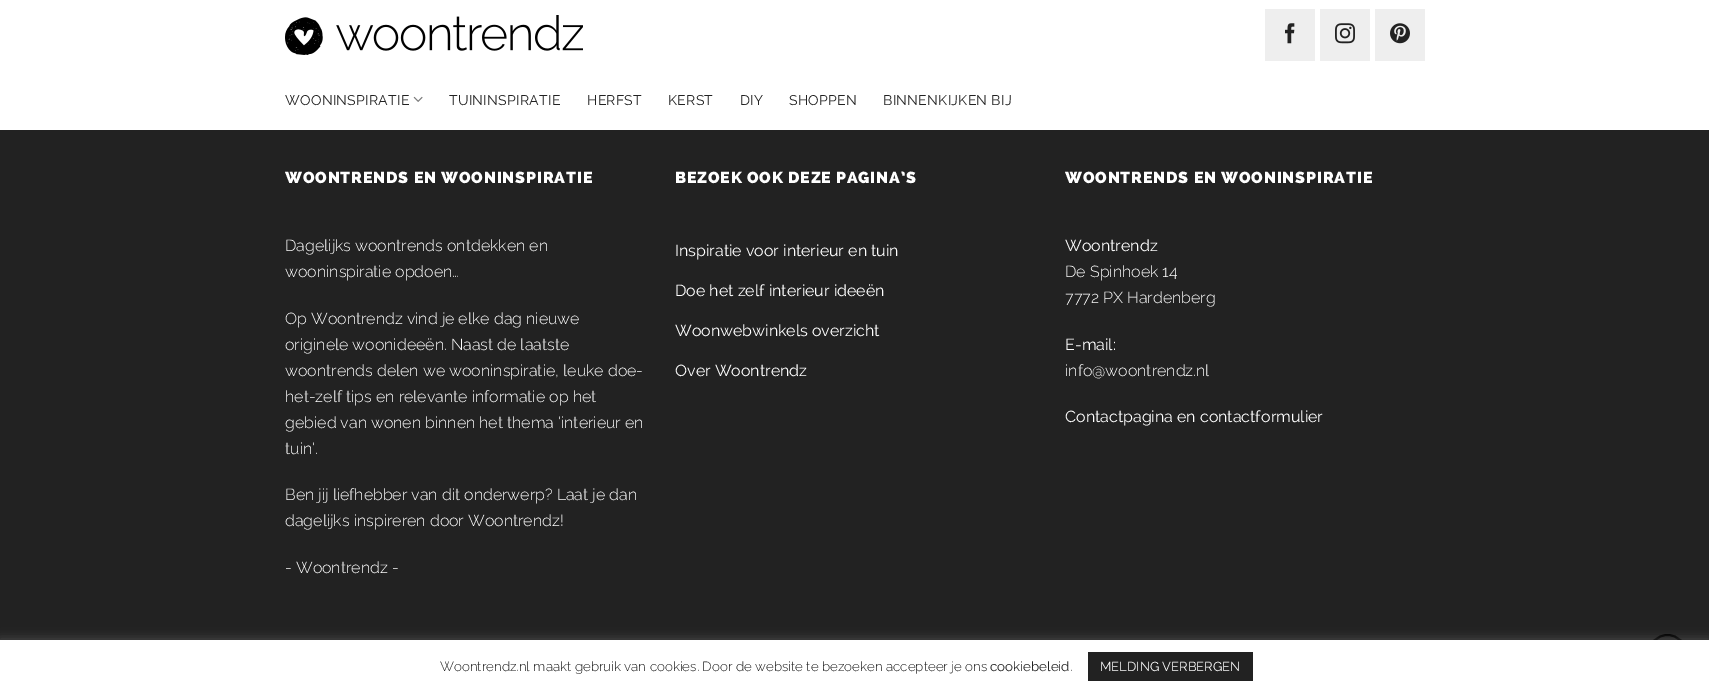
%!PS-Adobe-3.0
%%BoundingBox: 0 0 1709 693
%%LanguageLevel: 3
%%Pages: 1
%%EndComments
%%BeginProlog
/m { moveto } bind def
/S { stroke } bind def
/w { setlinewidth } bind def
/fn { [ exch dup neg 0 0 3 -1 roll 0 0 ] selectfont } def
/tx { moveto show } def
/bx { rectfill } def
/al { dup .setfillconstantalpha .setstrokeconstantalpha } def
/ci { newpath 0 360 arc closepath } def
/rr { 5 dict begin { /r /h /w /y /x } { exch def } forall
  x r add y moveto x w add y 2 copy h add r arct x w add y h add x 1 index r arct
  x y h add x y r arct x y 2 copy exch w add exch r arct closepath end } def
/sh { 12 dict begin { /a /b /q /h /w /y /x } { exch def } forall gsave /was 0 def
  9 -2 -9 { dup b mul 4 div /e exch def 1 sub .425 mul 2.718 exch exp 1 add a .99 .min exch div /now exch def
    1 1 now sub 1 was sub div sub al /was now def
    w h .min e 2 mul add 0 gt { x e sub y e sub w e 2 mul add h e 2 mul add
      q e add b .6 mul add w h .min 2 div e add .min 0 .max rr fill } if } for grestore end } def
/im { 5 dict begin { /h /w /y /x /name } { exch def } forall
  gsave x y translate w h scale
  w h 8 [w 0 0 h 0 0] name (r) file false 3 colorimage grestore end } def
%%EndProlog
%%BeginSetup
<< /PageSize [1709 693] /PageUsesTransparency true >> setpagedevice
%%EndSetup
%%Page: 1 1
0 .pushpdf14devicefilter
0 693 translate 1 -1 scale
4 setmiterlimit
0.133 setgray
0 0 1709 693 bx
1 setgray
0 0 1709 130 bx
(image0.raw) 285 15 298 40 im
0.933 setgray
1265 9 50 52 bx
(image1.raw) 1285 23 10 21 im
1320 9 50 52 bx
(image2.raw) 1335 23 20 21 im
1375 9 50 52 bx
(image3.raw) 1390 23 20 21 im
/Raleway-Regular 14 fn
0.133 setgray
285 105 m 0.25 0 (WOONINSPIRATIE) ashow
(image4.raw) 413 96 10 6 im
449 105 m 0.25 0 (TUININSPIRATIE) ashow
587 105 m 0.25 0 (HERFST) ashow
668 105 m 0.25 0 (KERST) ashow
740 105 m 0.25 0 (DIY) ashow
789 105 m 0.25 0 (SHOPPEN) ashow
883 105 m 0.25 0 (BINNENKIJKEN BIJ) ashow
/Raleway-Black 16 fn
1 setgray
285 183 m 0.8 0 (WOONTRENDS EN WOONINSPIRATIE) ashow
/Raleway-Light 16 fn
(Dagelijks woontrends ontdekken en) 285 251 tx
(wooninspiratie opdoen…) 285 277 tx
(Op Woontrendz vind je elke dag nieuwe) 285 324 tx
(originele woonideeën. Naast de laatste) 285 350 tx
(woontrends delen we wooninspiratie, leuke doe-) 285 376 tx
(het-zelf tips en relevante informatie op het) 285 402 tx
(gebied van wonen binnen het thema 'interieur en) 285 428 tx
(tuin'.) 285 454 tx
(Ben jij liefhebber van dit onderwerp? Laat je dan) 285 500 tx
(dagelijks inspireren door Woontrendz!) 285 526 tx
(- Woontrendz -) 285 573 tx
/Raleway-Black 16 fn
675 183 m 0.8 0 (BEZOEK OOK DEZE PAGINA’S) ashow
/Raleway-Regular 16 fn
(Inspiratie voor interieur en tuin) 675 256 tx
(Doe het zelf interieur ideeën) 675 296 tx
(Woonwebwinkels overzicht) 675 336 tx
(Over Woontrendz) 675 376 tx
/Raleway-Black 16 fn
1065 183 m 0.8 0 (WOONTRENDS EN WOONINSPIRATIE) ashow
/Raleway-Regular 16 fn
(Woontrendz) 1065 251 tx
/Raleway-Light 16 fn
(De Spinhoek 14) 1065 277 tx
(7772 PX Hardenberg) 1065 303 tx
/Raleway-Regular 16 fn
(E-mail:) 1065 350 tx
/Raleway-Light 16 fn
(info@woontrendz.nl) 1065 376 tx
/Raleway-Regular 16 fn
(Contactpagina en contactformulier) 1065 422 tx
0 setgray
2 w
1667.5 653.5 18.5 ci S
0.675 0.671 0.671 setrgbcolor
0 639 1709 53 0 5 0.3 sh
1 setgray
0 640 1709 53 bx
/Raleway-Light 13.35 fn
0.133 setgray
(Woontrendz.nl maakt gebruik van cookies. Door de website te bezoeken accepteer je ons) 440 671 tx
/Raleway-Regular 13.35 fn
(cookiebeleid) 990 671 tx
/Raleway-Light 13.35 fn
(.) 1070 671 tx
1088 652 165 29 bx
/Raleway-Regular 13 fn
1 setgray
(MELDING VERBERGEN) 1100 671 tx
.poppdf14devicefilter showpage
%%EOF
